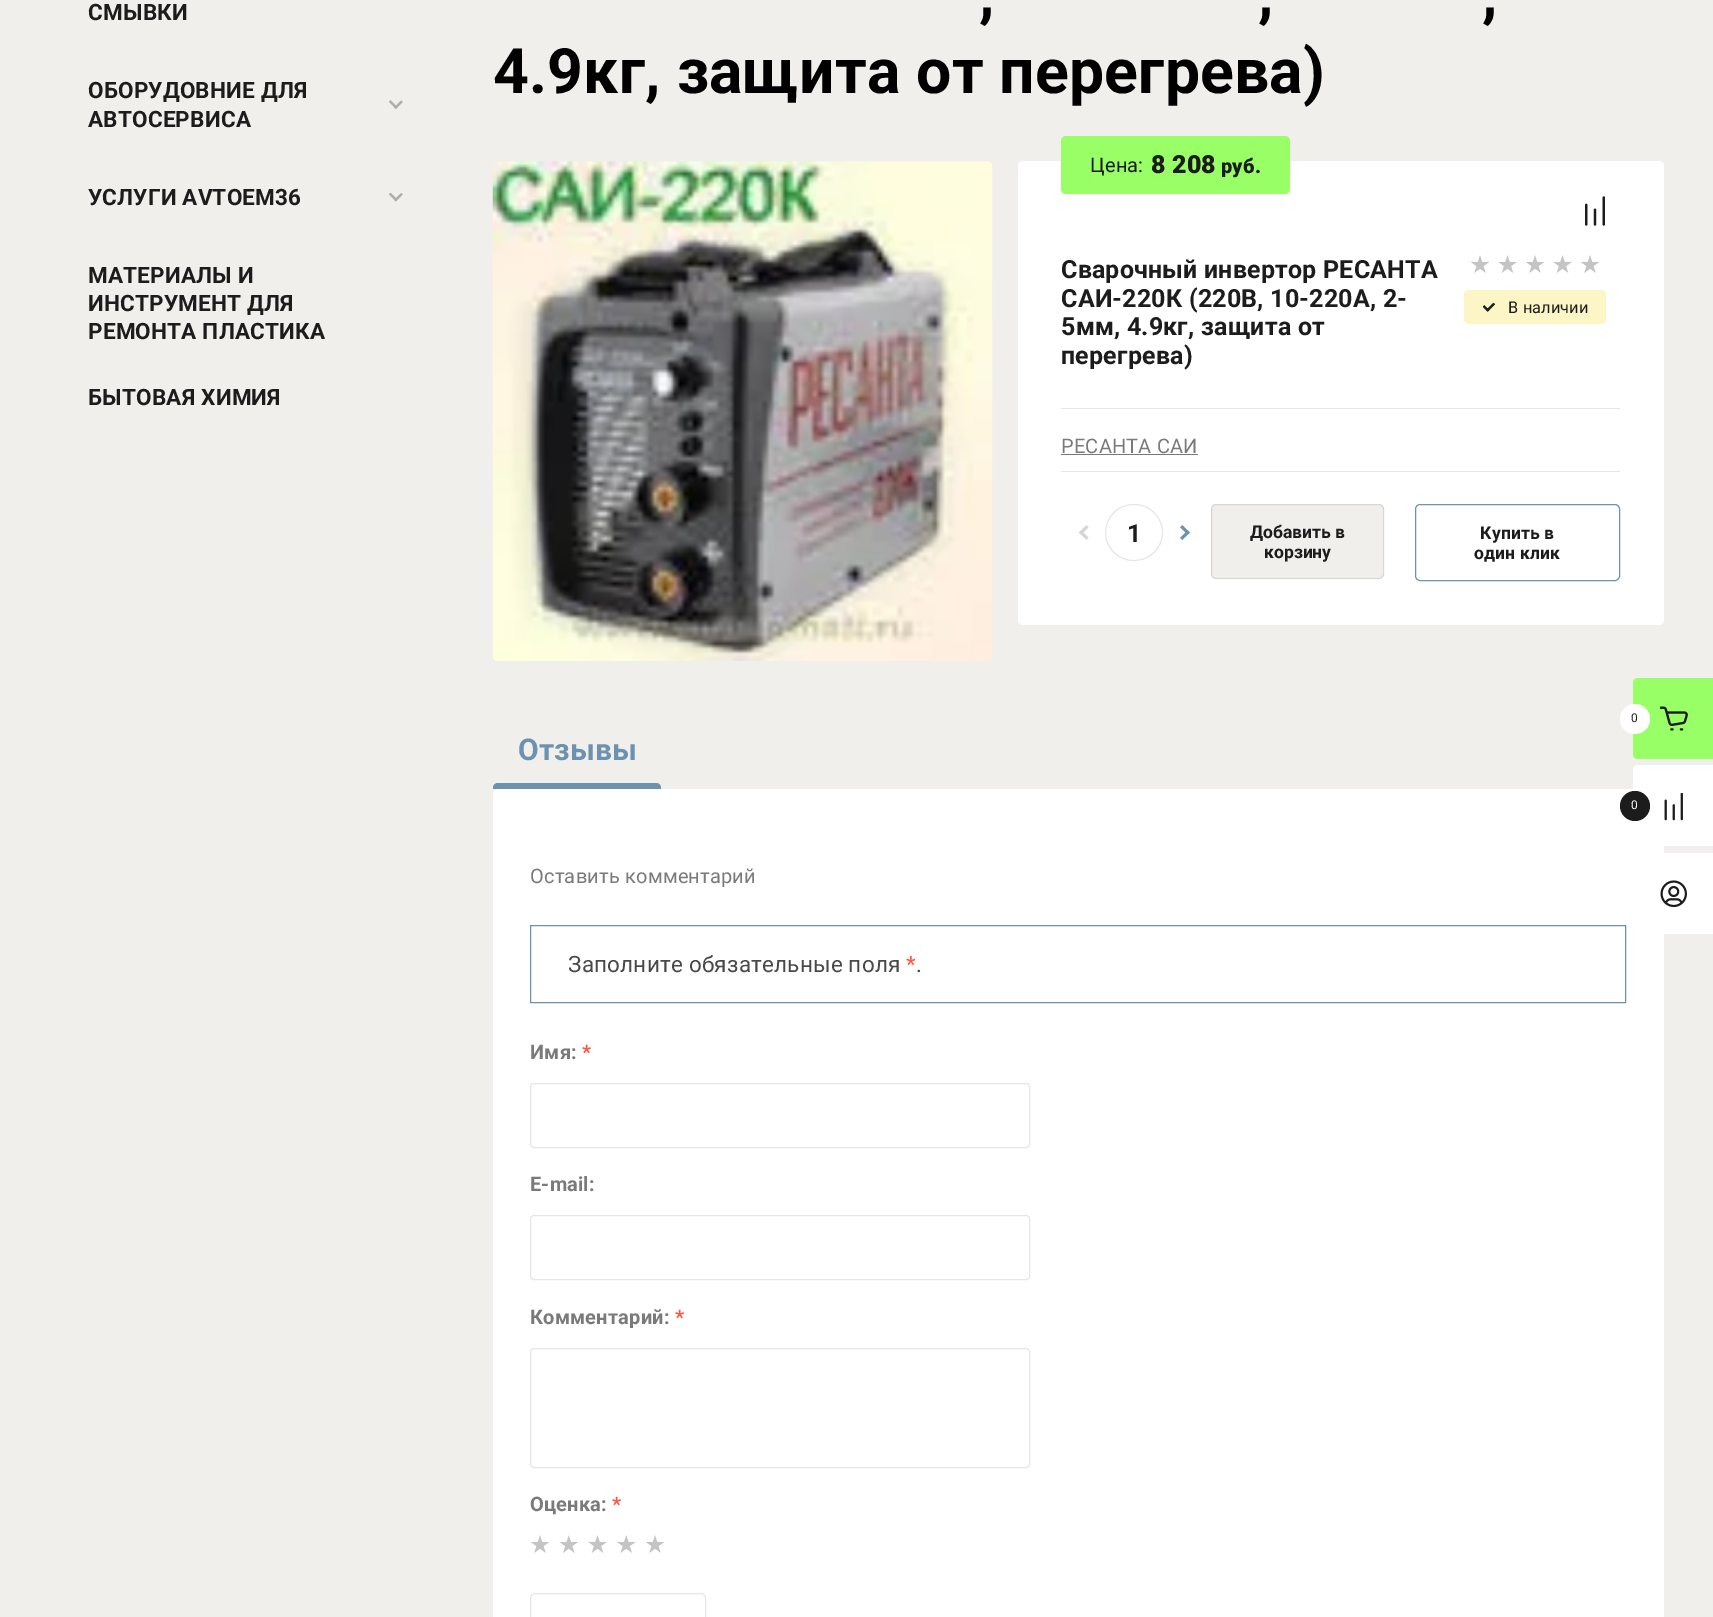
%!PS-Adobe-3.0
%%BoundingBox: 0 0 1713 1617
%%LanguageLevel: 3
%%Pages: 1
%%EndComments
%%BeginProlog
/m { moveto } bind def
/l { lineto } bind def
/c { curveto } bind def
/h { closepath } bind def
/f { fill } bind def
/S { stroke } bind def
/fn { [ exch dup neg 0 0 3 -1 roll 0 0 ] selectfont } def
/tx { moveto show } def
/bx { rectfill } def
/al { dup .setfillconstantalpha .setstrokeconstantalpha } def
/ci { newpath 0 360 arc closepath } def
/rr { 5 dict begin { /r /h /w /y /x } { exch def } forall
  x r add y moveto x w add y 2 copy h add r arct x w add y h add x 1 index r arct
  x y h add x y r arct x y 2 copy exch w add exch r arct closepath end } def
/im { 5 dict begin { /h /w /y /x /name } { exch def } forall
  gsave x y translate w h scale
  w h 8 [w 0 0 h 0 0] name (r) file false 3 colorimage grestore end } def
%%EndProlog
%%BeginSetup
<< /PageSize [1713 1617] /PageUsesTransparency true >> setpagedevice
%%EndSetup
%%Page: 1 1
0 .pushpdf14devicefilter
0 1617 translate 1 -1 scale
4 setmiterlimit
0.941 0.937 0.922 setrgbcolor
0 0 1713 1617 bx
/Roboto-Bold 22.5 fn
0.11 setgray
88 20 m 0.2 0 (СМЫВКИ) ashow
88 98 m 0.2 0 (ОБОРУДОВНИЕ ДЛЯ) ashow
88 127 m 0.2 0 (АВТОСЕРВИСА) ashow
(image0.raw) 389 100 14 9 im
88 205 m 0.2 0 (УСЛУГИ AVTOEM36) ashow
(image1.raw) 389 193 14 9 im
88 283 m 0.2 0 (МАТЕРИАЛЫ И) ashow
88 311 m 0.2 0 (ИНСТРУМЕНТ ДЛЯ) ashow
88 339 m 0.2 0 (РЕМОНТА ПЛАСТИКА) ashow
88 405 m 0.2 0 (БЫТОВАЯ ХИМИЯ) ashow
/Roboto-Bold 62.5 fn
0 setgray
979 15 m 0.2 0 (,) ashow
1258 15 m 0.2 0 (,) ashow
1482 15 m 0.2 0 (,) ashow
493 93 m 0.2 0 (4.9кг, защита от перегрева\)) ashow
(image2.raw) 492 161 501 500 im
1 setgray
1018 161 646 464 5 rr f
0.902 setgray
1061 408 559 1 bx
0.596 1 0.404 setrgbcolor
1061 136 229 58 5 rr f
/Roboto-Regular 20 fn
0.11 setgray
1090 172 m 0.2 0 (Цена:) ashow
/Roboto-Black 25 fn
1151 173 m 0.2 0 (8 208) ashow
/Roboto-Black 20 fn
1221 173 m 0.2 0 (руб.) ashow
/Roboto-Bold 25 fn
1061 278 m 0.2 0 (Сварочный инвертор РЕСАНТА) ashow
1061 307 m 0.2 0 (САИ-220К \(220В, 10-220А, 2-) ashow
1061 335 m 0.2 0 (5мм, 4.9кг, защита от) ashow
1061 364 m 0.2 0 (перегрева\)) ashow
(image3.raw) 1471 255 128 18 im
0.988 0.961 0.773 setrgbcolor
1464 290 142 34 5 rr f
(image4.raw) 1483 303 13 9 im
/Roboto-Regular 16.25 fn
0.11 setgray
1508 313 m 0.2 0 (В наличии) ashow
(image5.raw) 1585 196 20 30 im
/Roboto-Regular 20 fn
0.478 setgray
1061 453 m 0.2 0 (РЕСАНТА САИ) ashow
0.467 setgray
1061 454 137 1 bx
0.902 setgray
1061 471 559 1 bx
(image6.raw) 1079 525 10 15 im
1105.5 504.5 57 56 28 rr S
/Roboto-Bold 25 fn
0.11 setgray
(1) 1127 542 tx
(image7.raw) 1180 525 10 15 im
0.941 0.937 0.922 setrgbcolor
1211 504 173 75 5 rr f
0.1 al
0 setgray
1211.5 504.5 172 74 4.5 rr S
/Roboto-Bold 17.5 fn
1 al
0.11 setgray
(Добавить в) 1250 538 tx
(корзину) 1264 558 tx
0.424 0.573 0.686 setrgbcolor
1415.5 504.5 204 76 4.5 rr S
0.11 setgray
1480 539 m 0.2 0 (Купить в) ashow
1474 559 m 0.2 0 (один клик) ashow
/Roboto-Bold 30 fn
0.424 0.573 0.686 setrgbcolor
518 760 m 0.2 0 (Отзывы) ashow
498 783 m 656 783 l 659 783 661 785 661 788 c 661 789 l 493 789 l 493 788 l 493 785 495 783 498 783 c h f
1 setgray
493 789 1171 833 5 rr f
/Roboto-Regular 20 fn
0.478 setgray
530 883 m 0.2 0 (Оставить комментарий) ashow
0.424 0.573 0.686 setrgbcolor
530.5 925.5 1095 77 rectstroke
/Roboto-Regular 22.5 fn
0.286 setgray
568 972 m 0.2 0 (Заполните обязательные поля) ashow
1 0.337 0.251 setrgbcolor
906 972 m 0.2 0 (*) ashow
0.286 setgray
916 972 m 0.2 0 (.) ashow
/Roboto-Bold 20 fn
0.478 setgray
530 1059 m 0.2 0 (Имя:) ashow
1 0.337 0.251 setrgbcolor
582 1059 m 0.2 0 (*) ashow
0.902 setgray
530.5 1083.5 499 64 3.5 rr S
0.478 setgray
530 1191 m 0.2 0 (E-mail:) ashow
0.902 setgray
530.5 1215.5 499 64 3.5 rr S
0.478 setgray
530 1324 m 0.2 0 (Комментарий:) ashow
1 0.337 0.251 setrgbcolor
675 1324 m 0.2 0 (*) ashow
0.902 setgray
530.5 1348.5 499 119 3.5 rr S
0.478 setgray
530 1511 m 0.2 0 (Оценка:) ashow
1 0.337 0.251 setrgbcolor
612 1511 m 0.2 0 (*) ashow
(image8.raw) 531 1535 18 18 im
(image9.raw) 559 1535 19 18 im
(image10.raw) 588 1535 19 18 im
(image11.raw) 617 1535 19 18 im
(image8.raw) 646 1535 18 18 im
0.902 setgray
530.5 1593.5 175 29 4.5 rr S
0.596 1 0.404 setrgbcolor
1638 678 m 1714 678 l 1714 759 l 1638 759 l 1635 759 1633 757 1633 754 c 1633 683 l 1633 680 1635 678 1638 678 c h f
1 setgray
1635 719 15 ci f
/Roboto-Regular 12 fn
0.11 setgray
1631 722 m 0.2 0 (0) ashow
(image12.raw) 1660 706 28 25 im
1 setgray
1638 765 m 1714 765 l 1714 846 l 1638 846 l 1635 846 1633 844 1633 841 c 1633 770 l 1633 767 1635 765 1638 765 c h f
0.11 setgray
1635 806 15 ci f
1 setgray
1631 809 m 0.2 0 (0) ashow
(image13.raw) 1664 793 19 28 im
1638 853 m 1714 853 l 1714 934 l 1638 934 l 1635 934 1633 932 1633 929 c 1633 858 l 1633 855 1635 853 1638 853 c h f
(image14.raw) 1660 880 27 28 im
.poppdf14devicefilter showpage
%%EOF
